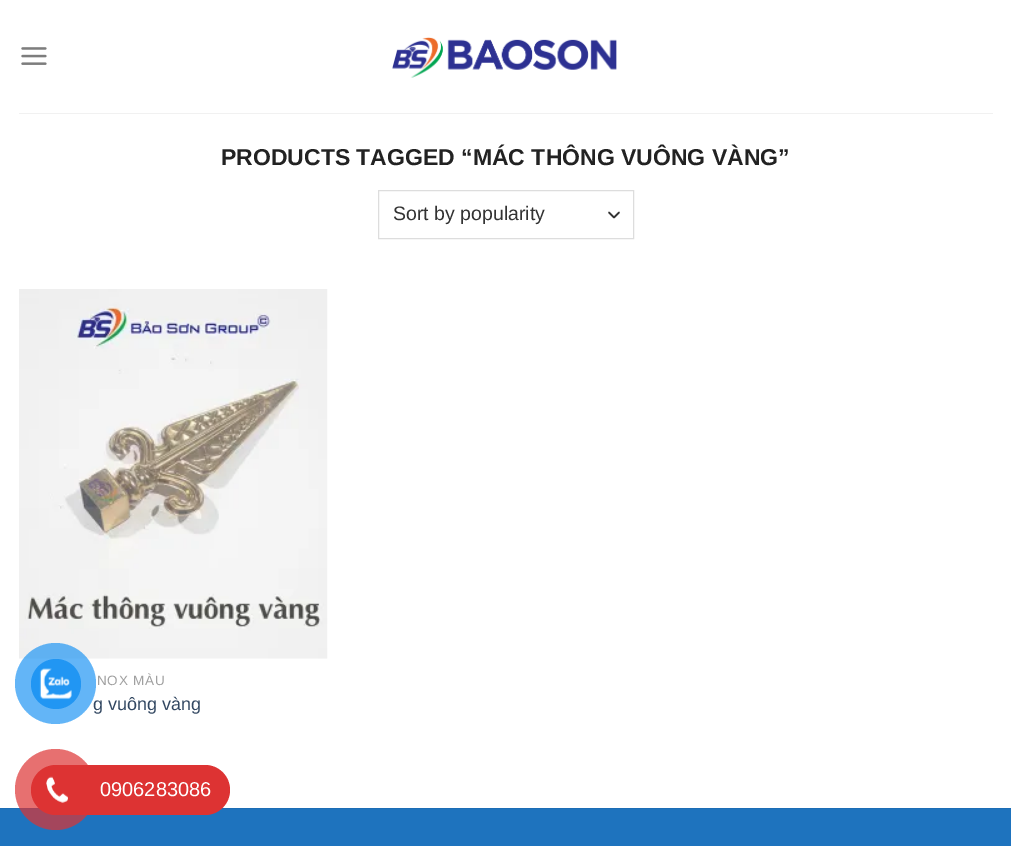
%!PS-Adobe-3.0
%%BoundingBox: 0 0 1011 846
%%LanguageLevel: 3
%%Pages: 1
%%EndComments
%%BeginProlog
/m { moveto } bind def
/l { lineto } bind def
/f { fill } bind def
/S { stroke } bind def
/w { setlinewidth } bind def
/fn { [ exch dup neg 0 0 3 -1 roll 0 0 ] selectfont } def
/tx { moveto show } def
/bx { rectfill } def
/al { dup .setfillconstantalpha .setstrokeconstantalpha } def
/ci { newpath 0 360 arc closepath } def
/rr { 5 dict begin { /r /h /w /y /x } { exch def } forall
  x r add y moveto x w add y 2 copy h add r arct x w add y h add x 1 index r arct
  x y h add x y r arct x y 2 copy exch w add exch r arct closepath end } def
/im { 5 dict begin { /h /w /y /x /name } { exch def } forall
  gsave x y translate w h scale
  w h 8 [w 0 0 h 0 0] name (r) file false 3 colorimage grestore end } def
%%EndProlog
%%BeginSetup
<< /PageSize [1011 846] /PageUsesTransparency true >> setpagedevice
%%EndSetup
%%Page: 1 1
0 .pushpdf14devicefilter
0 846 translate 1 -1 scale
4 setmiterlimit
1 setgray
0 0 1011 846 bx
(image0.raw) 21 47 26 18 im
(image1.raw) 392 37 225 41 im
0.945 setgray
19 113 974 1 bx
/LiberationSans-Bold 23 fn
0.133 setgray
(PRODUCTS TAGGED “MÁC THÔNG VUÔNG VÀNG”) 221 165 tx
0.2 setgray
1.7 w
1 setlinecap
1 setlinejoin
609 212.5 m 614 217.5 l 619 212.5 l S
0.867 setgray
1 w
0 setlinecap
0 setlinejoin
378.5 190.5 255 48 rectstroke
/LiberationSans-Regular 19.5 fn
0.2 setgray
(Sort by popularity) 393 220 tx
(image2.raw) 19 289 309 370 im
/LiberationSans-Regular 13.5 fn
0.627 setgray
97 685 m 0.75 0 (NOX MÀU) ashow
/LiberationSans-Regular 18 fn
0.2 0.282 0.384 setrgbcolor
(g vuông vàng) 93 710 tx
0.118 0.451 0.745 setrgbcolor
0 809 1011 37 bx
0.114 0.427 0.71 setrgbcolor
0 808 1011 1 bx
0.7 al
0.129 0.588 0.953 setrgbcolor
55.5 683.5 40.5 ci f
1 al
56 684 25 ci f
(image3.raw) 39 668 33 32 im
0.867 0.2 0.2 setrgbcolor
38 765 192 50 25 rr f
0.7 al
55.5 789.5 40.5 ci f
1 al
56 790 25 ci f
(image4.raw) 46 776 22 27 im
/LiberationSans-Regular 20 fn
1 setgray
(0906283086) 100 796 tx
.poppdf14devicefilter showpage
%%EOF
